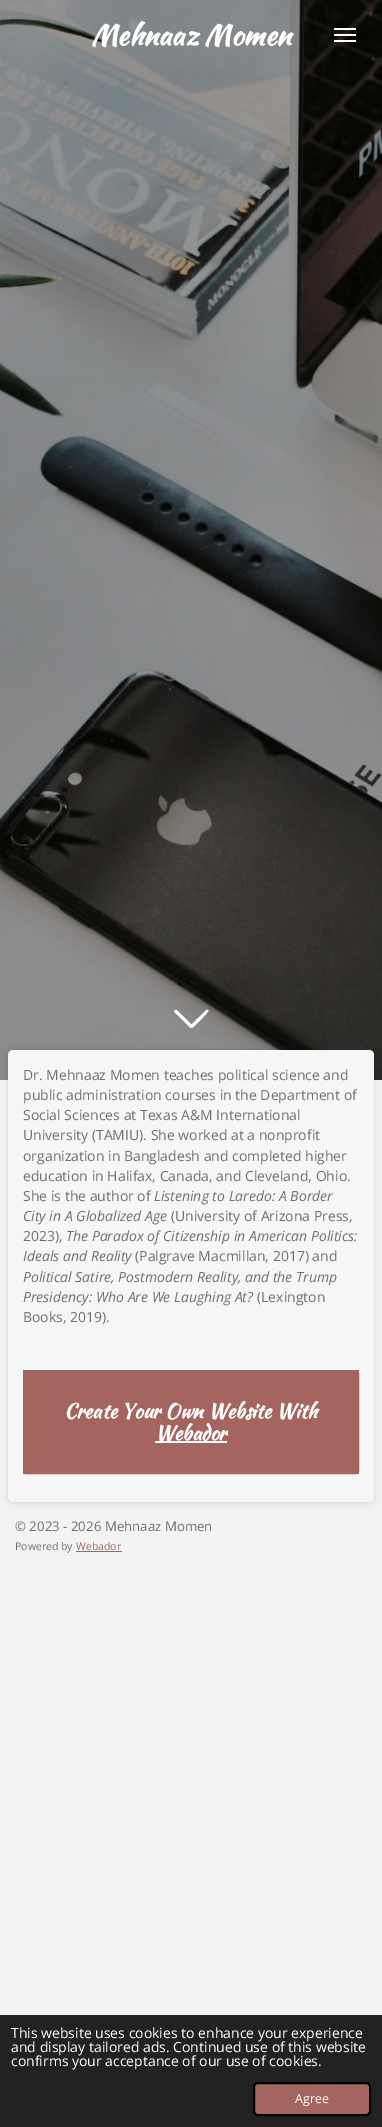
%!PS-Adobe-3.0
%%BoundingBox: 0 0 382 2127
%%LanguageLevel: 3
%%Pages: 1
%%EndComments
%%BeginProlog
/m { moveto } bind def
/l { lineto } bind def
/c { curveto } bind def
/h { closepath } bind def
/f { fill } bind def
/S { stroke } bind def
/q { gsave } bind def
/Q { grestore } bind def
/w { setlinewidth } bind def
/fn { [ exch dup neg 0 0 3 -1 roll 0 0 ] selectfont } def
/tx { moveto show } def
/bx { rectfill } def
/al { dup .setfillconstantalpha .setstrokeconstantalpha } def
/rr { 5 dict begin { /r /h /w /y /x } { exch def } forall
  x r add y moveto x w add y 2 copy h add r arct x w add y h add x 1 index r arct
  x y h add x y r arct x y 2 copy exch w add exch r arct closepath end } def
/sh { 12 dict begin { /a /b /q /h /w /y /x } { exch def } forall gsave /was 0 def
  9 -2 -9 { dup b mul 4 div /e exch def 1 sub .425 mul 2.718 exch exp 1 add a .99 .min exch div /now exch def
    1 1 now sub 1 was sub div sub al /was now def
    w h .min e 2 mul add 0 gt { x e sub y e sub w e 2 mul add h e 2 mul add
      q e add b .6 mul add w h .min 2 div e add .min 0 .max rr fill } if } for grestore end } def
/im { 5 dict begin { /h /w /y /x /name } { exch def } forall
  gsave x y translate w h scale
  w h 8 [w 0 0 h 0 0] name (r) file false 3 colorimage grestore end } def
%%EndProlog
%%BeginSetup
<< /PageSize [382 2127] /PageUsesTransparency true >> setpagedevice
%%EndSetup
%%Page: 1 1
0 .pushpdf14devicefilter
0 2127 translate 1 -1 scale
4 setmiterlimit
0.957 0.953 0.953 setrgbcolor
0 0 382 2127 bx
(image0.raw) 0 0 382 1080 im
1 setgray
176.5 1010 m 191.5 1024.5 l 206.5 1010 l 207 1009.5 208.5 1010 208.5 1011 c 208.5 1012 193.5 1027 192 1028 c 190.5 1028 l 177 1014.5 l 177 1014.5 171.5 1010.5 175.5 1010 c h f
/KaushanScript-Bold 28 fn
(Mehnaaz Momen) 91 45 tx
334 34 22 2 1 rr f
334 28 22 2 1 rr f
334 40 22 2 1 rr f
0 setgray
8 1050 366 452 5 1 0.1 sh
8 1052 366 452 5 4 0.07 sh
0.965 setgray
8 1050 366 452 5 rr f
/OpenSans-Regular 14 fn
0.435 setgray
(Dr. Mehnaaz Momen teaches political science and) 23 1080 tx
(public administration courses in the Department of) 23 1100 tx
(Social Sciences at Texas A&M International) 23 1120 tx
(University \(TAMIU\). She worked at a nonprofit) 23 1140 tx
(organization in Bangladesh and completed higher) 23 1161 tx
(education in Halifax, Canada, and Cleveland, Ohio.) 23 1181 tx
(She is the author of) 23 1201 tx
/OpenSans-Italic 14 fn
(Listening to Laredo: A Border) 154 1201 tx
(City in A Globalized Age) 23 1221 tx
/OpenSans-Regular 14 fn
(\(University of Arizona Press,) 171 1221 tx
(2023\),) 23 1241 tx
/OpenSans-Italic 14 fn
(The Paradox of Citizenship in American Politics:) 66 1241 tx
(Ideals and Reality) 23 1261 tx
/OpenSans-Regular 14 fn
(\(Palgrave Macmillan, 2017\) and) 135 1261 tx
/OpenSans-Italic 14 fn
(Political Satire, Postmodern Reality, and the Trump) 23 1282 tx
(Presidency: Who Are We Laughing At?) 23 1302 tx
/OpenSans-Regular 14 fn
(\(Lexington) 257 1302 tx
(Books, 2019\).) 23 1322 tx
0.647 0.396 0.373 setrgbcolor
23 1370 336 104 bx
0.604 0.404 0.384 setrgbcolor
23.5 1370.5 335 103 2.5 rr S
/KaushanScript-Bold 20 fn
1 setgray
(Create Your Own Website With) 64 1418 tx
155 1441 72 2 bx
(Webador) 155 1440 tx
/OpenSans-Regular 13.25 fn
0.435 setgray
(© 2023 - 2026 Mehnaaz Momen) 15 1531 tx
/OpenSans-Regular 10.5 fn
(Powered by) 15 1550 tx
0.647 0.396 0.373 setrgbcolor
76 1551 46 1 bx
(Webador) 76 1550 tx
0.133 setgray
0 2015 382 112 bx
/OpenSans-Regular 14 fn
1 setgray
(This website uses cookies to enhance your experience) 11 2038 tx
(and display tailored ads. Continued use of this website) 11 2052 tx
(confirms your acceptance of our use of cookies.) 11 2066 tx
0.647 0.396 0.373 setrgbcolor
254 2083 116 32 4 rr q f Q
0 setgray
2 w
S
/OpenSans-Regular 12.5 fn
1 setgray
(Agree) 295 2103 tx
.poppdf14devicefilter showpage
%%EOF
